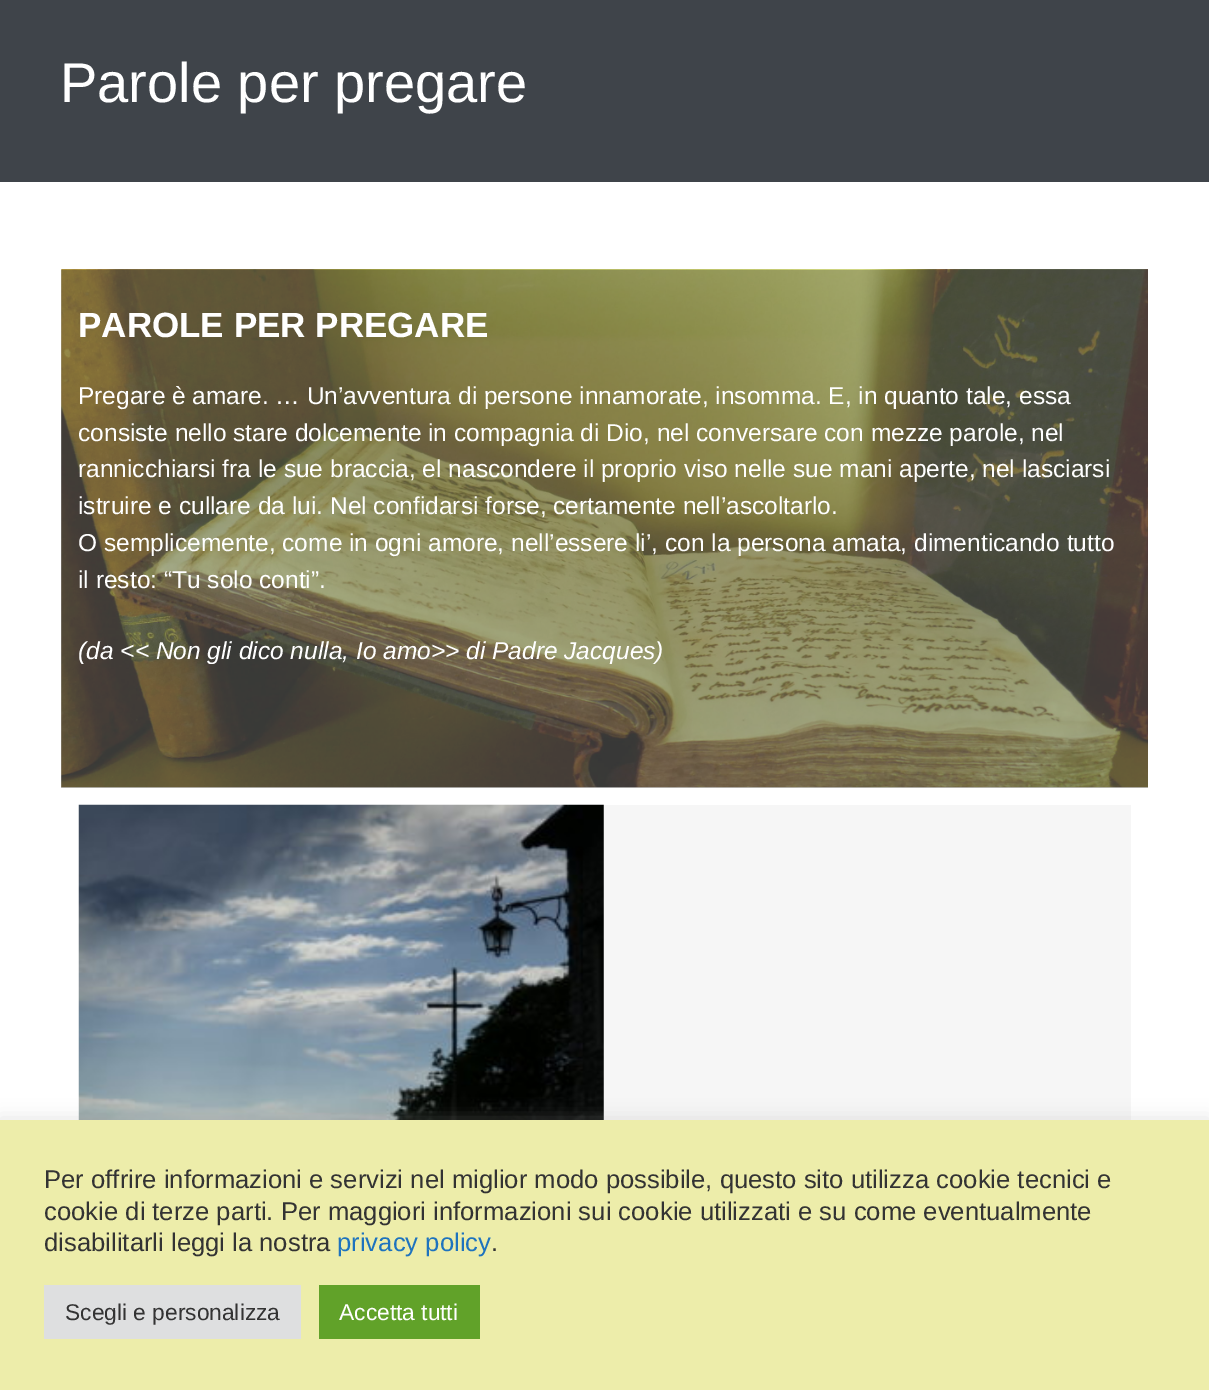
%!PS-Adobe-3.0
%%BoundingBox: 0 0 1209 1390
%%LanguageLevel: 3
%%Pages: 1
%%EndComments
%%BeginProlog
/fn { [ exch dup neg 0 0 3 -1 roll 0 0 ] selectfont } def
/tx { moveto show } def
/bx { rectfill } def
/al { dup .setfillconstantalpha .setstrokeconstantalpha } def
/rr { 5 dict begin { /r /h /w /y /x } { exch def } forall
  x r add y moveto x w add y 2 copy h add r arct x w add y h add x 1 index r arct
  x y h add x y r arct x y 2 copy exch w add exch r arct closepath end } def
/sh { 12 dict begin { /a /b /q /h /w /y /x } { exch def } forall gsave /was 0 def
  9 -2 -9 { dup b mul 4 div /e exch def 1 sub .425 mul 2.718 exch exp 1 add a .99 .min exch div /now exch def
    1 1 now sub 1 was sub div sub al /was now def
    w h .min e 2 mul add 0 gt { x e sub y e sub w e 2 mul add h e 2 mul add
      q e add b .6 mul add w h .min 2 div e add .min 0 .max rr fill } if } for grestore end } def
/im { 5 dict begin { /h /w /y /x /name } { exch def } forall
  gsave x y translate w h scale
  w h 8 [w 0 0 h 0 0] name (r) file false 3 colorimage grestore end } def
%%EndProlog
%%BeginSetup
<< /PageSize [1209 1390] /PageUsesTransparency true >> setpagedevice
%%EndSetup
%%Page: 1 1
0 .pushpdf14devicefilter
0 1390 translate 1 -1 scale
4 setmiterlimit
1 setgray
0 0 1209 1390 bx
0.765 setgray
61 270 1087 518 bx
0.247 0.267 0.29 setrgbcolor
0 0 1209 182 bx
/LiberationSans-Regular 56 fn
1 setgray
(Parole per pregare) 60 102 tx
(image0.raw) 61 269 1087 519 im
/LiberationSans-Bold 35 fn
(PAROLE PER PREGARE) 78 337 tx
/LiberationSans-Regular 24.5 fn
(Pregare è amare. … Un’avventura di persone innamorate, insomma. E, in quanto tale, essa) 78 404 tx
(consiste nello stare dolcemente in compagnia di Dio, nel conversare con mezze parole, nel) 78 441 tx
(rannicchiarsi fra le sue braccia, el nascondere il proprio viso nelle sue mani aperte, nel lasciarsi) 78 477 tx
(istruire e cullare da lui. Nel confidarsi forse, certamente nell’ascoltarlo.) 78 514 tx
(O semplicemente, come in ogni amore, nell’essere li’, con la persona amata, dimenticando tutto) 78 551 tx
(il resto: “Tu solo conti”.) 78 588 tx
/LiberationSans-Italic 24.5 fn
(\(da << Non gli dico nulla, Io amo>> di Padre Jacques\)) 78 659 tx
0.965 setgray
603 805 528 315 bx
(image1.raw) 78 804 526 316 im
0.675 0.671 0.671 setrgbcolor
0 1118 1209 272 0 9 0.3 sh
0.929 0.929 0.667 setrgbcolor
0 1120 1209 270 bx
/LiberationSans-Regular 25.65 fn
0.2 setgray
(Per offrire informazioni e servizi nel miglior modo possibile, questo sito utilizza cookie tecnici e) 44 1188 tx
(cookie di terze parti. Per maggiori informazioni sui cookie utilizzati e su come eventualmente) 44 1220 tx
(disabilitarli leggi la nostra) 44 1251 tx
0.118 0.451 0.745 setrgbcolor
(privacy policy) 337 1251 tx
0.2 setgray
(.) 491 1251 tx
0.871 0.875 0.878 setrgbcolor
44 1285 257 54 bx
/LiberationSans-Regular 22.75 fn
0.2 setgray
(Scegli e personalizza) 65 1320 tx
0.38 0.635 0.161 setrgbcolor
319 1285 161 54 bx
1 setgray
(Accetta tutti) 339 1320 tx
.poppdf14devicefilter showpage
%%EOF
